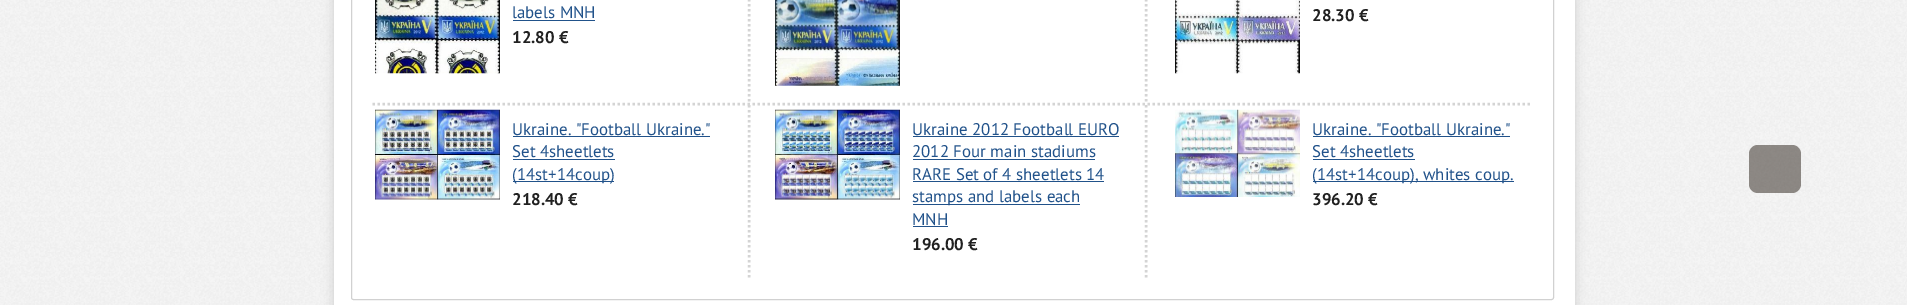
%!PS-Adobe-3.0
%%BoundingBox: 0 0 1907 305
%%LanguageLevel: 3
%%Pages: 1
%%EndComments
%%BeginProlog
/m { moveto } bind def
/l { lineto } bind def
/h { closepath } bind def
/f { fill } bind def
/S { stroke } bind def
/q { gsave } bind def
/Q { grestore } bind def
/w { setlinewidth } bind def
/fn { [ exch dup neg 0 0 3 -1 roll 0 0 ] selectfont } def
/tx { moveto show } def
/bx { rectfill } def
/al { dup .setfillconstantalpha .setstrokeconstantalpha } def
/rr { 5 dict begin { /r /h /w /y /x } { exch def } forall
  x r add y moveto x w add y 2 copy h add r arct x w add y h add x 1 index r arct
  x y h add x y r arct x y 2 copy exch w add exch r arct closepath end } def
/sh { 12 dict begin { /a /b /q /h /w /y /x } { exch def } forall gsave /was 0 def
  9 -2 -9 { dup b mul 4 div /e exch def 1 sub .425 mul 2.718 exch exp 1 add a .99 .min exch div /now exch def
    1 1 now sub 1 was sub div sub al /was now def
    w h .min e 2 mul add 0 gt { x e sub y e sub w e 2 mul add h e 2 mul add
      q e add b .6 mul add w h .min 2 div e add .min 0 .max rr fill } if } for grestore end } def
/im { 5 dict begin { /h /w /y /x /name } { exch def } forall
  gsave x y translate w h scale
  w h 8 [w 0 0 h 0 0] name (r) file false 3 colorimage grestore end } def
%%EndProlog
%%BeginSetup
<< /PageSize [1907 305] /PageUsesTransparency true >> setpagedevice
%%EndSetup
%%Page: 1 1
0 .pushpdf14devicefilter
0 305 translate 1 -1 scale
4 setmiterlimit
1 setgray
0 0 1907 305 bx
(image0.raw) 0 0 1907 305 im
334 0 1241 305 bx
q
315 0 m 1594 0 l 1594 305 l 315 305 l h 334 -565 m 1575 -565 l 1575 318 l 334 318 l h eoclip newpath
0.8 setgray
334 -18 1241 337 0 6 1 sh
Q
0.82 setgray
351.5 -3.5 1202 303 2 rr S
(image1.raw) 375 0 125 74 im
/PTSans-Regular 16.9 fn
0.129 0.322 0.541 setrgbcolor
(labels MNH) 512 18 tx
513 20 82 1 bx
/PTSans-Bold 16.9 fn
0.129 setgray
(12.80 €) 512 43 tx
0.831 setgray
2.5 w
[2.5 2.5] 0 setdash
1146 -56 m 1146 102.5 l S
749 -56 m 749 102.5 l S
(image2.raw) 775 0 125 86 im
(image3.raw) 1175 0 125 74 im
0.129 setgray
(28.30 €) 1312 21 tx
0.831 setgray
372.5 104 m 1532.5 104 l S
(image4.raw) 375 109 125 91 im
/PTSans-Regular 16.9 fn
0.129 0.322 0.541 setrgbcolor
(Ukraine. "Football Ukraine.") 512 135 tx
513 136 197 1 bx
(Set 4sheetlets) 512 157 tx
513 159 102 1 bx
513 181 101 1 bx
(\(14st+14coup\)) 512 180 tx
/PTSans-Bold 16.9 fn
0.129 setgray
(218.40 €) 512 205 tx
0.831 setgray
1146 105 m 1146 279 l S
749 105 m 749 279 l S
(image5.raw) 775 109 125 91 im
/PTSans-Regular 16.9 fn
0.129 0.322 0.541 setrgbcolor
(Ukraine 2012 Football EURO) 912 135 tx
913 136 206 1 bx
(2012 Four main stadiums) 912 157 tx
913 159 182 1 bx
(RARE Set of 4 sheetlets 14) 912 180 tx
913 181 191 1 bx
913 204 167 1 bx
(stamps and labels each) 912 202 tx
(MNH) 912 225 tx
913 226 35 1 bx
/PTSans-Bold 16.9 fn
0.129 setgray
(196.00 €) 912 250 tx
(image6.raw) 1175 109 125 88 im
/PTSans-Regular 16.9 fn
0.129 0.322 0.541 setrgbcolor
(Ukraine. "Football Ukraine.") 1312 135 tx
1313 136 197 1 bx
(Set 4sheetlets) 1312 157 tx
1313 159 102 1 bx
1313 181 201 1 bx
(\(14st+14coup\), whites coup.) 1312 180 tx
/PTSans-Bold 16.9 fn
0.129 setgray
(396.20 €) 1312 205 tx
0.5 al
0.149 0.114 0.082 setrgbcolor
1749 145 52 48 9 rr f
.poppdf14devicefilter showpage
%%EOF
